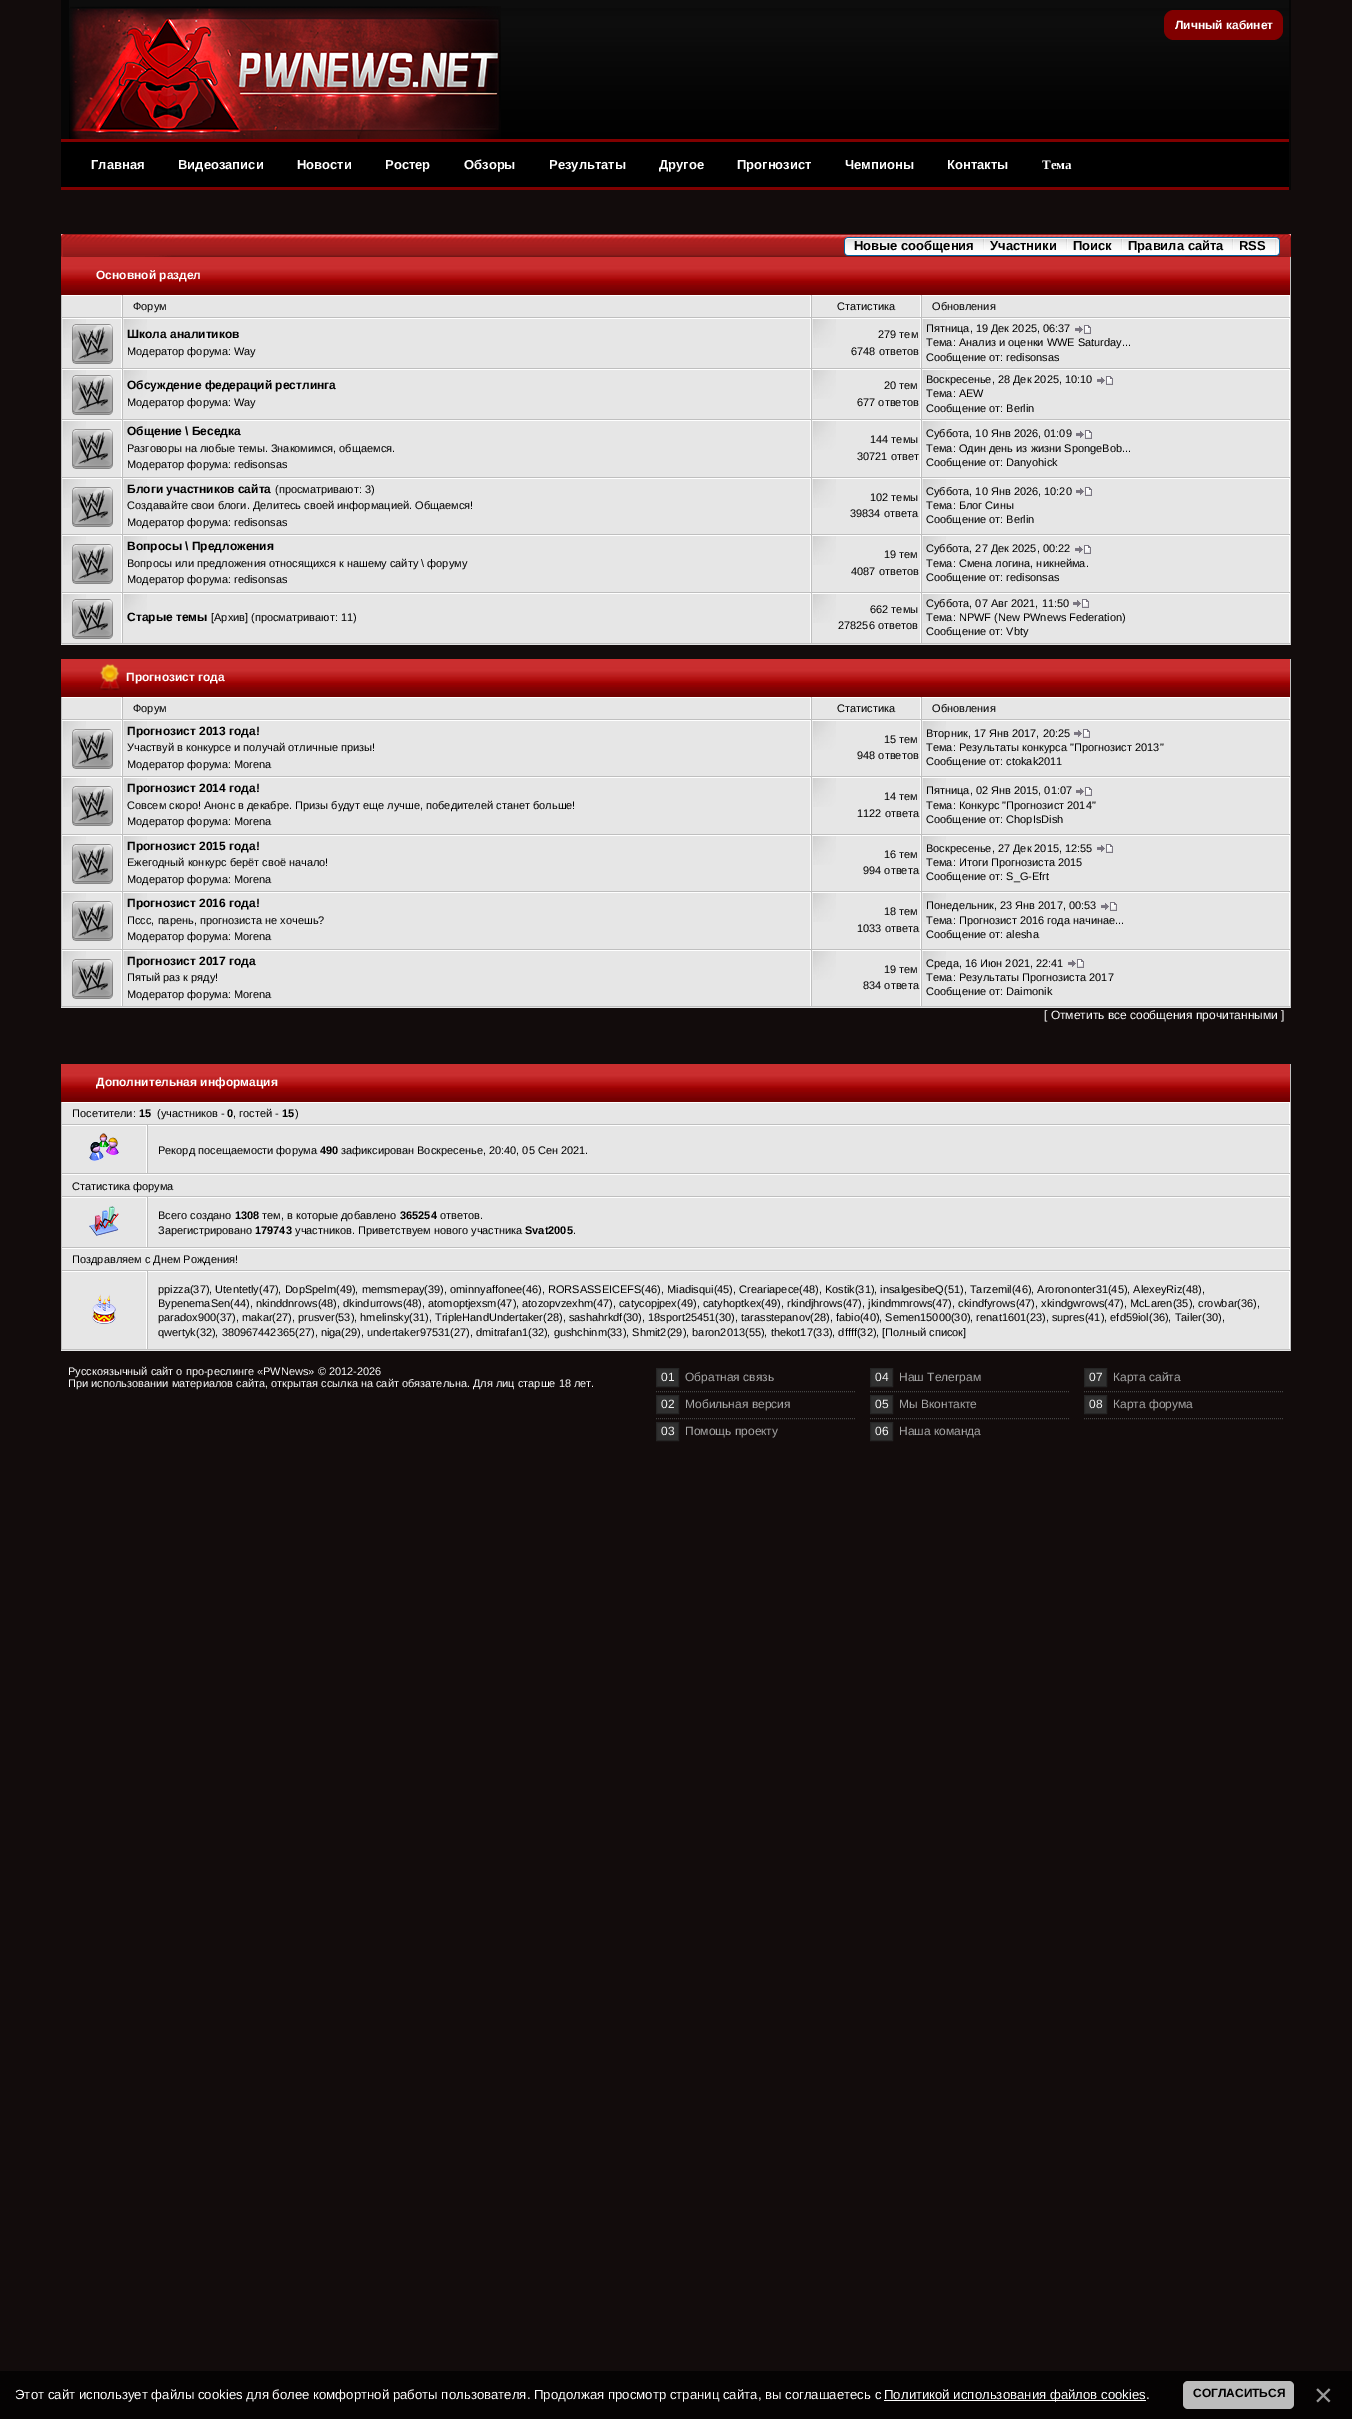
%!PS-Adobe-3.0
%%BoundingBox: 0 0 1352 2419
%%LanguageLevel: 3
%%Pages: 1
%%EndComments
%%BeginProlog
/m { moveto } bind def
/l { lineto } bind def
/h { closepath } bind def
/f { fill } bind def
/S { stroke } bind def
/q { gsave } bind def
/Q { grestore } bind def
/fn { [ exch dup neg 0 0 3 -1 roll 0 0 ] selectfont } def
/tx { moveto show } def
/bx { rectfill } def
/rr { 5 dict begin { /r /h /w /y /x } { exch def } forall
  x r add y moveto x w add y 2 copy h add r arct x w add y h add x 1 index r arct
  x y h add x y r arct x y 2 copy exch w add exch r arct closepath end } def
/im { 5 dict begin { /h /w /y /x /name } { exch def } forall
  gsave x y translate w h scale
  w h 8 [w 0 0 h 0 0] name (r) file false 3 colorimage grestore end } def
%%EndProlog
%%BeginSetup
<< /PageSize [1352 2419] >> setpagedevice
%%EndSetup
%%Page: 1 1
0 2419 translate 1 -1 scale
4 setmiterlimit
0.071 0.047 0.047 setrgbcolor
0 0 1352 2419 bx
0.024 setgray
61 0 1230 139 bx
(image0.raw) 69 0 1220 139 im
(image1.raw) 70 6 431 133 im
0.502 0 0 setrgbcolor
1164 10 119 30 10 rr f
/LiberationSans-Bold 12 fn
1 setgray
(Личный кабинет) 1175 29 tx
0.024 setgray
1289 139 2 51 bx
0 setgray
61 142 1228 45 bx
0.502 0 0 setrgbcolor
61 139 1228 3 bx
61 187 1228 3 bx
/LiberationSans-Bold 13 fn
1 setgray
(Главная) 91 169 tx
(Видеозаписи) 178 169 tx
(Новости) 297 169 tx
(Ростер) 385 169 tx
(Обзоры) 464 169 tx
(Результаты) 549 169 tx
(Другое) 659 169 tx
(Прогнозист) 737 169 tx
(Чемпионы) 845 169 tx
(Контакты) 947 169 tx
/LiberationSerif-Bold 13 fn
(Тема) 1042 169 tx
(image2.raw) 172 234 1013 23 im
(image3.raw) 61 234 111 23 im
(image4.raw) 1185 234 106 23 im
(image5.raw) 1275 237 5 19 im
(image6.raw) 844 237 431 19 im
/LiberationSans-Bold 13 fn
0 setgray
(Новые сообщения) 854 250 tx
(image7.raw) 983 239 2 11 im
(Участники) 990 250 tx
(image8.raw) 1066 239 2 11 im
(Поиск) 1073 250 tx
(image8.raw) 1121 239 2 11 im
(Правила сайта) 1128 250 tx
(image7.raw) 1232 239 2 11 im
(RSS) 1239 250 tx
0.902 setgray
61 296 1230 349 bx
0.749 setgray
1291 257 m 1291 645 l 1290 644 l 1290 257 l h f
(image9.raw) 61 257 1229 38 im
/LiberationSans-Bold 12 fn
1 setgray
(Основной раздел) 96 279 tx
61 295 1229 1 bx
121 295 1 23 bx
0.749 setgray
61 317 61 1 bx
61 295 1 23 bx
1 setgray
810 295 1 23 bx
0.749 setgray
122 317 689 1 bx
122 295 1 23 bx
/LiberationSans-Regular 11 fn
0 setgray
(Форум) 133 310 tx
1 setgray
920 295 1 23 bx
0.749 setgray
811 317 110 1 bx
811 295 1 23 bx
0 setgray
(Статистика) 837 310 tx
1 setgray
1289 295 1 23 bx
0.749 setgray
921 317 369 1 bx
921 295 1 23 bx
0 setgray
(Обновления) 932 310 tx
(image10.raw) 63 319 23 29 im
1 setgray
61 318 1229 1 bx
121 318 1 51 bx
0.749 setgray
61 368 61 1 bx
61 318 1 51 bx
(image11.raw) 72 324 41 40 im
(image10.raw) 124 319 23 29 im
1 setgray
810 318 1 51 bx
0.749 setgray
122 368 689 1 bx
122 318 1 51 bx
/LiberationSans-Bold 12 fn
0 setgray
(Школа аналитиков) 127 338 tx
/LiberationSans-Regular 11 fn
(Модератор форума: Way) 127 355 tx
(image10.raw) 813 319 23 29 im
1 setgray
920 318 1 51 bx
0.749 setgray
811 368 110 1 bx
811 318 1 51 bx
0 setgray
(279 тем) 878 338 tx
(6748 ответов) 851 355 tx
(image10.raw) 923 319 23 29 im
1 setgray
1289 318 1 51 bx
0.749 setgray
921 368 369 1 bx
921 318 1 51 bx
0 setgray
(Пятница, 19 Дек 2025, 06:37) 926 332 tx
(image12.raw) 1075 325 16 9 im
(Тема: Анализ и оценки WWE Saturday...) 926 346 tx
(Сообщение от: redisonsas) 926 361 tx
(image10.raw) 63 370 23 29 im
1 setgray
61 369 1229 1 bx
121 369 1 51 bx
0.749 setgray
61 419 61 1 bx
61 369 1 51 bx
(image11.raw) 72 375 41 40 im
(image10.raw) 124 370 23 29 im
1 setgray
810 369 1 51 bx
0.749 setgray
122 419 689 1 bx
122 369 1 51 bx
/LiberationSans-Bold 12 fn
0 setgray
(Обсуждение федераций рестлинга) 127 389 tx
/LiberationSans-Regular 11 fn
(Модератор форума: Way) 127 406 tx
(image10.raw) 813 370 23 29 im
1 setgray
920 369 1 51 bx
0.749 setgray
811 419 110 1 bx
811 369 1 51 bx
0 setgray
(20 тем) 884 389 tx
(677 ответов) 857 406 tx
(image10.raw) 923 370 23 29 im
1 setgray
1289 369 1 51 bx
0.749 setgray
921 419 369 1 bx
921 369 1 51 bx
0 setgray
(Воскресенье, 28 Дек 2025, 10:10) 926 383 tx
(image12.raw) 1097 376 16 9 im
(Тема: AEW) 926 397 tx
(Сообщение от: Berlin) 926 412 tx
(image10.raw) 63 421 23 29 im
1 setgray
61 420 1229 1 bx
121 420 1 58 bx
0.749 setgray
61 477 61 1 bx
61 420 1 58 bx
(image13.raw) 72 429 41 40 im
(image10.raw) 124 421 23 29 im
1 setgray
810 420 1 58 bx
0.749 setgray
122 477 689 1 bx
122 420 1 58 bx
/LiberationSans-Bold 12 fn
0 setgray
(Общение \\ Беседка) 127 435 tx
/LiberationSans-Regular 11 fn
(Разговоры на любые темы. Знакомимся, общаемся.) 127 452 tx
(Модератор форума: redisonsas) 127 468 tx
(image10.raw) 813 421 23 29 im
1 setgray
920 420 1 58 bx
0.749 setgray
811 477 110 1 bx
811 420 1 58 bx
0 setgray
(144 темы) 870 443 tx
(30721 ответ) 857 460 tx
(image10.raw) 923 421 23 29 im
1 setgray
1289 420 1 58 bx
0.749 setgray
921 477 369 1 bx
921 420 1 58 bx
0 setgray
(Суббота, 10 Янв 2026, 01:09) 926 437 tx
(image12.raw) 1076 430 16 9 im
(Тема: Один день из жизни SpongeBob...) 926 452 tx
(Сообщение от: Danyohick) 926 466 tx
(image10.raw) 63 479 23 29 im
1 setgray
61 478 1229 1 bx
121 478 1 57 bx
0.749 setgray
61 534 61 1 bx
61 478 1 57 bx
(image13.raw) 72 487 41 40 im
(image10.raw) 124 479 23 29 im
1 setgray
810 478 1 57 bx
0.749 setgray
122 534 689 1 bx
122 478 1 57 bx
/LiberationSans-Bold 12 fn
0 setgray
(Блоги участников сайта) 127 493 tx
/LiberationSans-Regular 11 fn
(\(просматривают: 3\)) 275 493 tx
(Создавайте свои блоги. Делитесь своей информацией. Общаемся!) 127 509 tx
(Модератор форума: redisonsas) 127 526 tx
(image10.raw) 813 479 23 29 im
1 setgray
920 478 1 57 bx
0.749 setgray
811 534 110 1 bx
811 478 1 57 bx
0 setgray
(102 темы) 870 501 tx
(39834 ответа) 850 517 tx
(image10.raw) 923 479 23 29 im
1 setgray
1289 478 1 57 bx
0.749 setgray
921 534 369 1 bx
921 478 1 57 bx
0 setgray
(Суббота, 10 Янв 2026, 10:20) 926 495 tx
(image12.raw) 1076 487 16 9 im
(Тема: Блог Сины) 926 509 tx
(Сообщение от: Berlin) 926 523 tx
(image10.raw) 63 536 23 29 im
1 setgray
61 535 1229 1 bx
121 535 1 58 bx
0.749 setgray
61 592 61 1 bx
61 535 1 58 bx
(image13.raw) 72 544 41 40 im
(image10.raw) 124 536 23 29 im
1 setgray
810 535 1 58 bx
0.749 setgray
122 592 689 1 bx
122 535 1 58 bx
/LiberationSans-Bold 12 fn
0 setgray
(Вопросы \\ Предложения) 127 550 tx
/LiberationSans-Regular 11 fn
(Вопросы или предложения относящихся к нашему сайту \\ форуму) 127 567 tx
(Модератор форума: redisonsas) 127 583 tx
(image10.raw) 813 536 23 29 im
1 setgray
920 535 1 58 bx
0.749 setgray
811 592 110 1 bx
811 535 1 58 bx
0 setgray
(19 тем) 884 558 tx
(4087 ответов) 851 575 tx
(image10.raw) 923 536 23 29 im
1 setgray
1289 535 1 58 bx
0.749 setgray
921 592 369 1 bx
921 535 1 58 bx
0 setgray
(Суббота, 27 Дек 2025, 00:22) 926 552 tx
(image12.raw) 1075 545 16 9 im
(Тема: Смена логина, никнейма.) 926 567 tx
(Сообщение от: redisonsas) 926 581 tx
(image10.raw) 63 594 23 29 im
1 setgray
61 593 1229 1 bx
121 593 1 51 bx
0.749 setgray
61 643 61 1 bx
61 593 1 51 bx
(image11.raw) 72 599 41 40 im
(image10.raw) 124 594 23 29 im
1 setgray
810 593 1 51 bx
0.749 setgray
122 643 689 1 bx
122 593 1 51 bx
/LiberationSans-Bold 12 fn
0 setgray
(Старые темы) 127 621 tx
/LiberationSans-Regular 11 fn
([Архив] \(просматривают: 11\)) 211 621 tx
(image10.raw) 813 594 23 29 im
1 setgray
920 593 1 51 bx
0.749 setgray
811 643 110 1 bx
811 593 1 51 bx
0 setgray
(662 темы) 870 613 tx
(278256 ответов) 838 629 tx
(image10.raw) 923 594 23 29 im
1 setgray
1289 593 1 51 bx
0.749 setgray
921 643 369 1 bx
921 593 1 51 bx
0 setgray
(Суббота, 07 Авг 2021, 11:50) 926 607 tx
(image12.raw) 1073 599 16 9 im
(Тема: NPWF \(New PWnews Federation\)) 926 621 tx
(Сообщение от: Vbty) 926 635 tx
0.902 setgray
61 698 1230 310 bx
0.749 setgray
1291 659 m 1291 1008 l 1290 1007 l 1290 659 l h f
(image9.raw) 61 659 1229 38 im
(image14.raw) 99 664 22 27 im
/LiberationSans-Bold 12 fn
1 setgray
(Прогнозист года) 126 681 tx
61 697 1229 1 bx
121 697 1 23 bx
0.749 setgray
61 719 61 1 bx
61 697 1 23 bx
1 setgray
810 697 1 23 bx
0.749 setgray
122 719 689 1 bx
122 697 1 23 bx
/LiberationSans-Regular 11 fn
0 setgray
(Форум) 133 712 tx
1 setgray
920 697 1 23 bx
0.749 setgray
811 719 110 1 bx
811 697 1 23 bx
0 setgray
(Статистика) 837 712 tx
1 setgray
1289 697 1 23 bx
0.749 setgray
921 719 369 1 bx
921 697 1 23 bx
0 setgray
(Обновления) 932 712 tx
(image10.raw) 63 721 23 29 im
1 setgray
61 720 1229 1 bx
121 720 1 57 bx
0.749 setgray
61 776 61 1 bx
61 720 1 57 bx
(image13.raw) 72 729 41 40 im
(image10.raw) 124 721 23 29 im
1 setgray
810 720 1 57 bx
0.749 setgray
122 776 689 1 bx
122 720 1 57 bx
/LiberationSans-Bold 12 fn
0 setgray
(Прогнозист 2013 года!) 127 735 tx
/LiberationSans-Regular 11 fn
(Участвуй в конкурсе и получай отличные призы!) 127 751 tx
(Модератор форума: Morena) 127 768 tx
(image10.raw) 813 721 23 29 im
1 setgray
920 720 1 57 bx
0.749 setgray
811 776 110 1 bx
811 720 1 57 bx
0 setgray
(15 тем) 884 743 tx
(948 ответов) 857 759 tx
(image10.raw) 923 721 23 29 im
1 setgray
1289 720 1 57 bx
0.749 setgray
921 776 369 1 bx
921 720 1 57 bx
0 setgray
(Вторник, 17 Янв 2017, 20:25) 926 737 tx
(image12.raw) 1074 729 16 9 im
(Тема: Результаты конкурса "Прогнозист 2013") 926 751 tx
(Сообщение от: ctokak2011) 926 765 tx
(image10.raw) 63 778 23 29 im
1 setgray
61 777 1229 1 bx
121 777 1 58 bx
0.749 setgray
61 834 61 1 bx
61 777 1 58 bx
(image13.raw) 72 786 41 40 im
(image10.raw) 124 778 23 29 im
1 setgray
810 777 1 58 bx
0.749 setgray
122 834 689 1 bx
122 777 1 58 bx
/LiberationSans-Bold 12 fn
0 setgray
(Прогнозист 2014 года!) 127 792 tx
/LiberationSans-Regular 11 fn
(Совсем скоро! Анонс в декабре. Призы будут еще лучше, победителей станет больше!) 127 809 tx
(Модератор форума: Morena) 127 825 tx
(image10.raw) 813 778 23 29 im
1 setgray
920 777 1 58 bx
0.749 setgray
811 834 110 1 bx
811 777 1 58 bx
0 setgray
(14 тем) 884 800 tx
(1122 ответа) 857 817 tx
(image10.raw) 923 778 23 29 im
1 setgray
1289 777 1 58 bx
0.749 setgray
921 834 369 1 bx
921 777 1 58 bx
0 setgray
(Пятница, 02 Янв 2015, 01:07) 926 794 tx
(image12.raw) 1076 787 16 9 im
(Тема: Конкурс "Прогнозист 2014") 926 809 tx
(Сообщение от: ChopIsDish) 926 823 tx
(image10.raw) 63 836 23 29 im
1 setgray
61 835 1229 1 bx
121 835 1 57 bx
0.749 setgray
61 891 61 1 bx
61 835 1 57 bx
(image13.raw) 72 844 41 40 im
(image10.raw) 124 836 23 29 im
1 setgray
810 835 1 57 bx
0.749 setgray
122 891 689 1 bx
122 835 1 57 bx
/LiberationSans-Bold 12 fn
0 setgray
(Прогнозист 2015 года!) 127 850 tx
/LiberationSans-Regular 11 fn
(Ежегодный конкурс берёт своё начало!) 127 866 tx
(Модератор форума: Morena) 127 883 tx
(image10.raw) 813 836 23 29 im
1 setgray
920 835 1 57 bx
0.749 setgray
811 891 110 1 bx
811 835 1 57 bx
0 setgray
(16 тем) 884 858 tx
(994 ответа) 863 874 tx
(image10.raw) 923 836 23 29 im
1 setgray
1289 835 1 57 bx
0.749 setgray
921 891 369 1 bx
921 835 1 57 bx
0 setgray
(Воскресенье, 27 Дек 2015, 12:55) 926 852 tx
(image12.raw) 1097 844 16 9 im
(Тема: Итоги Прогнозиста 2015) 926 866 tx
(Сообщение от: S_G-Efrt) 926 880 tx
(image10.raw) 63 893 23 29 im
1 setgray
61 892 1229 1 bx
121 892 1 58 bx
0.749 setgray
61 949 61 1 bx
61 892 1 58 bx
(image13.raw) 72 901 41 40 im
(image10.raw) 124 893 23 29 im
1 setgray
810 892 1 58 bx
0.749 setgray
122 949 689 1 bx
122 892 1 58 bx
/LiberationSans-Bold 12 fn
0 setgray
(Прогнозист 2016 года!) 127 907 tx
/LiberationSans-Regular 11 fn
(Пссс, парень, прогнозиста не хочешь?) 127 924 tx
(Модератор форума: Morena) 127 940 tx
(image10.raw) 813 893 23 29 im
1 setgray
920 892 1 58 bx
0.749 setgray
811 949 110 1 bx
811 892 1 58 bx
0 setgray
(18 тем) 884 915 tx
(1033 ответа) 857 932 tx
(image10.raw) 923 893 23 29 im
1 setgray
1289 892 1 58 bx
0.749 setgray
921 949 369 1 bx
921 892 1 58 bx
0 setgray
(Понедельник, 23 Янв 2017, 00:53) 926 909 tx
(image12.raw) 1101 902 16 9 im
(Тема: Прогнозист 2016 года начинае...) 926 924 tx
(Сообщение от: alesha) 926 938 tx
(image10.raw) 63 951 23 29 im
1 setgray
61 950 1229 1 bx
121 950 1 57 bx
0.749 setgray
61 1006 61 1 bx
61 950 1 57 bx
(image13.raw) 72 959 41 40 im
(image10.raw) 124 951 23 29 im
1 setgray
810 950 1 57 bx
0.749 setgray
122 1006 689 1 bx
122 950 1 57 bx
/LiberationSans-Bold 12 fn
0 setgray
(Прогнозист 2017 года) 127 965 tx
/LiberationSans-Regular 11 fn
(Пятый раз к ряду!) 127 981 tx
(Модератор форума: Morena) 127 998 tx
(image10.raw) 813 951 23 29 im
1 setgray
920 950 1 57 bx
0.749 setgray
811 1006 110 1 bx
811 950 1 57 bx
0 setgray
(19 тем) 884 973 tx
(834 ответа) 863 989 tx
(image10.raw) 923 951 23 29 im
1 setgray
1289 950 1 57 bx
0.749 setgray
921 1006 369 1 bx
921 950 1 57 bx
0 setgray
(Среда, 16 Июн 2021, 22:41) 926 967 tx
(image12.raw) 1068 959 16 9 im
(Тема: Результаты Прогнозиста 2017) 926 981 tx
(Сообщение от: Daimonik) 926 995 tx
/LiberationSans-Regular 12 fn
1 setgray
([ Отметить все сообщения прочитанными ]) 1044 1019 tx
0.902 setgray
61 1103 1230 248 bx
0.749 setgray
1291 1064 m 1291 1351 l 1290 1350 l 1290 1064 l h f
(image9.raw) 61 1064 1229 38 im
/LiberationSans-Bold 12 fn
1 setgray
(Дополнительная информация) 96 1086 tx
61 1102 1229 1 bx
1289 1102 1 23 bx
0.749 setgray
61 1124 1229 1 bx
61 1102 1 23 bx
/LiberationSans-Regular 11 fn
0 setgray
(Посетители:) 72 1117 tx
/LiberationSans-Bold 11 fn
(15) 139 1117 tx
/LiberationSans-Regular 11 fn
(\(участников -) 157 1117 tx
/LiberationSans-Bold 11 fn
(0) 227 1117 tx
/LiberationSans-Regular 11 fn
(, гостей -) 233 1117 tx
/LiberationSans-Bold 11 fn
(15) 282 1117 tx
/LiberationSans-Regular 11 fn
(\)) 295 1117 tx
1 setgray
61 1125 1229 1 bx
146 1125 1 49 bx
0.749 setgray
61 1173 86 1 bx
61 1125 1 49 bx
(image15.raw) 89 1133 30 28 im
1 setgray
1289 1125 1 49 bx
0.749 setgray
147 1173 1143 1 bx
147 1125 1 49 bx
0 setgray
(Рекорд посещаемости форума) 158 1154 tx
/LiberationSans-Bold 11 fn
(490) 320 1154 tx
/LiberationSans-Regular 11 fn
(зафиксирован Воскресенье, 20:40, 05 Сен 2021.) 341 1154 tx
1 setgray
61 1174 1229 1 bx
1289 1174 1 23 bx
0.749 setgray
61 1196 1229 1 bx
61 1174 1 23 bx
0 setgray
(Статистика форума) 72 1190 tx
1 setgray
61 1197 1229 1 bx
146 1197 1 51 bx
0.749 setgray
61 1247 86 1 bx
61 1197 1 51 bx
(image16.raw) 89 1206 30 30 im
1 setgray
1289 1197 1 51 bx
0.749 setgray
147 1247 1143 1 bx
147 1197 1 51 bx
0 setgray
(Всего создано) 158 1219 tx
/LiberationSans-Bold 11 fn
(1308) 235 1219 tx
/LiberationSans-Regular 11 fn
(тем, в которые добавлено) 262 1219 tx
/LiberationSans-Bold 11 fn
(365254) 400 1219 tx
/LiberationSans-Regular 11 fn
(ответов.) 440 1219 tx
(Зарегистрировано) 158 1234 tx
/LiberationSans-Bold 11 fn
(179743) 255 1234 tx
/LiberationSans-Regular 11 fn
(участников. Приветствуем нового участника) 295 1234 tx
/LiberationSans-Bold 11 fn
(Svat2005) 525 1234 tx
/LiberationSans-Regular 11 fn
(.) 573 1234 tx
1 setgray
61 1248 1229 1 bx
1289 1248 1 23 bx
0.749 setgray
61 1270 1229 1 bx
61 1248 1 23 bx
0 setgray
(Поздравляем с Днем Рождения!) 72 1263 tx
1 setgray
61 1271 1229 1 bx
146 1271 1 79 bx
0.749 setgray
61 1349 86 1 bx
61 1271 1 79 bx
(image17.raw) 92 1294 24 30 im
1 setgray
1289 1271 1 79 bx
0.749 setgray
147 1349 1143 1 bx
147 1271 1 79 bx
0 setgray
(ppizza\(37\), Utentetly\(47\), DopSpelm\(49\), memsmepay\(39\), ominnyaffonee\(46\), RORSASSEICEFS\(46\), Miadisqui\(45\), Creariapece\(48\), Kostik\(31\), insalgesibeQ\(51\), Tarzemil\(46\), Arorononter31\(45\), AlexeyRiz\(48\),) 158 1293 tx
(BypenemaSen\(44\), nkinddnrows\(48\), dkindurrows\(48\), atomoptjexsm\(47\), atozopvzexhm\(47\), catycopjpex\(49\), catyhoptkex\(49\), rkindjhrows\(47\), jkindmmrows\(47\), ckindfyrows\(47\), xkindgwrows\(47\), McLaren\(35\), crowbar\(36\),) 158 1307 tx
(paradox900\(37\), makar\(27\), prusver\(53\), hmelinsky\(31\), TripleHandUndertaker\(28\), sashahrkdf\(30\), 18sport25451\(30\), tarasstepanov\(28\), fabio\(40\), Semen15000\(30\), renat1601\(23\), supres\(41\), efd59iol\(36\), Tailer\(30\),) 158 1321 tx
(qwertyk\(32\), 380967442365\(27\), niga\(29\), undertaker97531\(27\), dmitrafan1\(32\), gushchinm\(33\), Shmit2\(29\), baron2013\(55\), thekot17\(33\), dffff\(32\), [Полный список]) 158 1336 tx
1 setgray
(Русскоязычный сайт о про-реслинге «PWNews» © 2012-2026) 68 1375 tx
(При использовании материалов сайта, открытая ссылка на сайт обязательна. Для лиц старше 18 лет.) 68 1387 tx
0.188 setgray
656.5 1368.5 m 678.5 1368.5 l 678.5 1386.5 l 656.5 1386.5 l h q f Q
0.145 setgray
S
/LiberationSans-Regular 12 fn
0.953 setgray
(01) 661 1381 tx
0.647 setgray
(Обратная связь) 685 1381 tx
0.271 setgray
[1 1] 0 setdash
656 1391.5 m 856 1391.5 l S
0.188 setgray
656.5 1395.5 m 678.5 1395.5 l 678.5 1413.5 l 656.5 1413.5 l h q f Q
0.145 setgray
[] 0 setdash
S
0.953 setgray
(02) 661 1408 tx
0.647 setgray
(Мобильная версия) 685 1408 tx
0.271 setgray
[1 1] 0 setdash
656 1418.5 m 856 1418.5 l S
0.188 setgray
656.5 1422.5 m 678.5 1422.5 l 678.5 1440.5 l 656.5 1440.5 l h q f Q
0.145 setgray
[] 0 setdash
S
0.953 setgray
(03) 661 1435 tx
0.647 setgray
(Помощь проекту) 685 1435 tx
0.188 setgray
870.5 1368.5 m 892.5 1368.5 l 892.5 1386.5 l 870.5 1386.5 l h q f Q
0.145 setgray
S
0.953 setgray
(04) 875 1381 tx
0.647 setgray
(Наш Телеграм) 899 1381 tx
0.271 setgray
[1 1] 0 setdash
870 1391.5 m 1070 1391.5 l S
0.188 setgray
870.5 1395.5 m 892.5 1395.5 l 892.5 1413.5 l 870.5 1413.5 l h q f Q
0.145 setgray
[] 0 setdash
S
0.953 setgray
(05) 875 1408 tx
0.647 setgray
(Мы Вконтакте) 899 1408 tx
0.271 setgray
[1 1] 0 setdash
870 1418.5 m 1070 1418.5 l S
0.188 setgray
870.5 1422.5 m 892.5 1422.5 l 892.5 1440.5 l 870.5 1440.5 l h q f Q
0.145 setgray
[] 0 setdash
S
0.953 setgray
(06) 875 1435 tx
0.647 setgray
(Наша команда) 899 1435 tx
0.188 setgray
1084.5 1368.5 m 1106.5 1368.5 l 1106.5 1386.5 l 1084.5 1386.5 l h q f Q
0.145 setgray
S
0.953 setgray
(07) 1089 1381 tx
0.647 setgray
(Карта сайта) 1113 1381 tx
0.271 setgray
[1 1] 0 setdash
1084 1391.5 m 1284 1391.5 l S
0.188 setgray
1084.5 1395.5 m 1106.5 1395.5 l 1106.5 1413.5 l 1084.5 1413.5 l h q f Q
0.145 setgray
[] 0 setdash
S
0.953 setgray
(08) 1089 1408 tx
0.647 setgray
(Карта форума) 1113 1408 tx
0.271 setgray
[1 1] 0 setdash
1084 1418.5 m 1284 1418.5 l S
0.02 0.012 0.012 setrgbcolor
0 2371 1352 48 bx
/LiberationSans-Regular 13.2 fn
1 setgray
(Этот сайт использует файлы cookies для более комфортной работы пользователя. Продолжая просмотр страниц сайта, вы соглашаетесь с) 15 2399 tx
884 2400 262 1 bx
(Политикой использования файлов cookies.) 884 2399 tx
0.737 setgray
1183 2381 111 28 5 rr f
/LiberationSans-Bold 12 fn
0 setgray
(СОГЛАСИТЬСЯ) 1193 2397 tx
/LiberationSans-Regular 32 fn
0.6 setgray
(×) 1314 2406 tx
showpage
%%EOF
